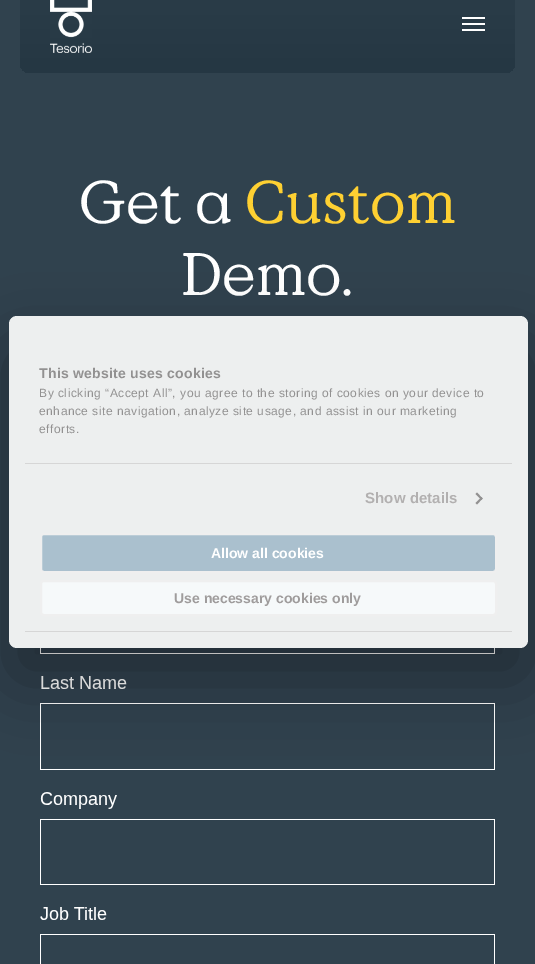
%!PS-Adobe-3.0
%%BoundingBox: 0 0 535 964
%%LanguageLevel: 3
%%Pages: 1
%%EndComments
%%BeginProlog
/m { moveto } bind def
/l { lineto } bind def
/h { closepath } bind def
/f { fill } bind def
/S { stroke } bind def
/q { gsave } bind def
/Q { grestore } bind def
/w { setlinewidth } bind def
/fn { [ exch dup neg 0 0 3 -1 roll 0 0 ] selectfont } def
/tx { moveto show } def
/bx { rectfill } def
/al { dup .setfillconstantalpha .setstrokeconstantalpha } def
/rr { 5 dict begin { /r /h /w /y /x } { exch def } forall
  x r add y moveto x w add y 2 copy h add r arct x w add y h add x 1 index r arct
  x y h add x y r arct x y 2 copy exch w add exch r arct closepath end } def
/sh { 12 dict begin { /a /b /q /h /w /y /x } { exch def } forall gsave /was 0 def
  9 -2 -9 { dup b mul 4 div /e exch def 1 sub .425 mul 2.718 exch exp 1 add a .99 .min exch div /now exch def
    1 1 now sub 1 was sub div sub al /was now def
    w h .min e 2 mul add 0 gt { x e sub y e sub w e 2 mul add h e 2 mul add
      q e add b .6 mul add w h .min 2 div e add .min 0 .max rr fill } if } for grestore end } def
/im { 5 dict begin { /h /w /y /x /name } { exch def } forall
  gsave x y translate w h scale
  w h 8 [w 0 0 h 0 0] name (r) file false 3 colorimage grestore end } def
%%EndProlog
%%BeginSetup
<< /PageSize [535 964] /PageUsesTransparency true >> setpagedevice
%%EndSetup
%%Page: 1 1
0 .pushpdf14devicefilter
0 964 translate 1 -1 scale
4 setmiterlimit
0.188 0.259 0.306 setrgbcolor
0 0 535 964 bx
q 20 -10 495 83 10 rr clip newpath
<< /ShadingType 2 /ColorSpace /DeviceRGB /Coords [268 -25 268 73] /Extend [true true] /Function << /FunctionType 2 /Domain [0 1] /C0 [0.173 0.243 0.29] /C1 [0.145 0.216 0.263] /N 1 >> >> shfill Q
(image0.raw) 50 0 42 53 im
1 setgray
462 17 23 2 bx
462 23 23 2 bx
462 29 23 2 bx
/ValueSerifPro-Regular 60 fn
(Get a) 79 223 tx
0.996 0.816 0.196 setrgbcolor
(Custom) 245 223 tx
1 setgray
(Demo.) 181 295 tx
(image1.raw) 40 648 455 316 im
0 setgray
9 348 519 332 8 34 0.3 sh
0.929 0.937 0.937 setrgbcolor
9 316 519 332 8 rr f
0.839 setgray
25 463 487 1 bx
/LiberationSans-Bold 14 fn
0.573 0.569 0.569 setrgbcolor
39 378 m 0.25 0 (This website uses cookies) ashow
/LiberationSans-Regular 12 fn
39 397 m 0.5 0 (By clicking “Accept All”, you agree to the storing of cookies on your device to) ashow
39 415 m 0.5 0 (enhance site navigation, analyze site usage, and assist in our marketing) ashow
39 433 m 0.5 0 (efforts.) ashow
/LiberationSans-Bold 15 fn
0.698 0.69 0.69 setrgbcolor
365 503 m 0.1 0 (Show details) ashow
0.573 0.569 0.569 setrgbcolor
477 492.5 m 482.5 498.5 l 481.5 500 l 475.5 494 l h f
481.5 497 m 482.5 498.5 l 477 504.5 l 475.5 503 l h f
0.839 setgray
25 631 487 1 bx
0.667 0.753 0.808 setrgbcolor
41 534 455 38 3 rr q f Q
0.937 setgray
2 w
S
/LiberationSans-Bold 14 fn
1 setgray
(Allow all cookies) 211 558 tx
0.965 0.976 0.98 setrgbcolor
41 581 455 34 3 rr q f Q
0.937 setgray
S
0.624 0.612 0.612 setrgbcolor
(Use necessary cookies only) 174 603 tx
.poppdf14devicefilter showpage
%%EOF
